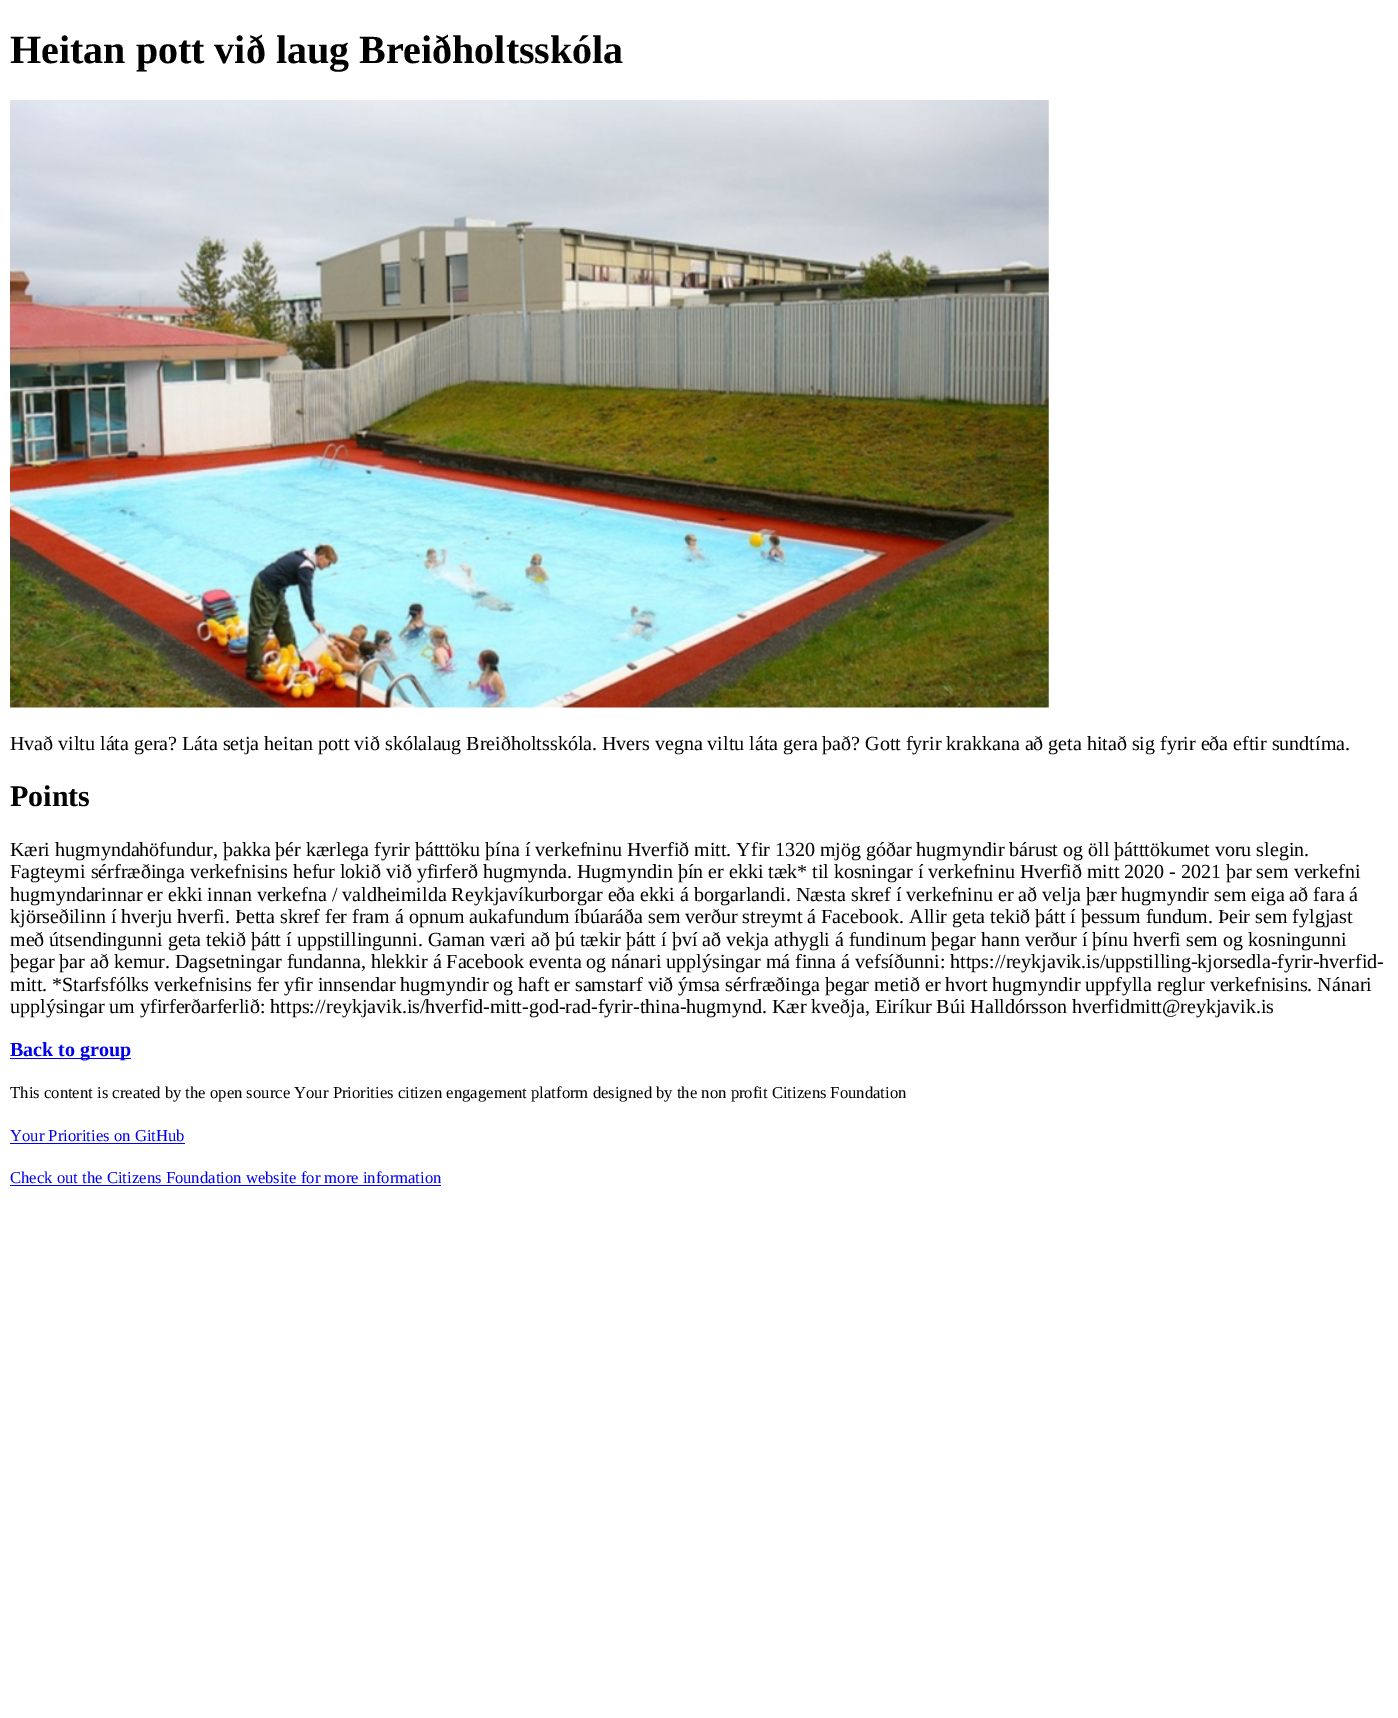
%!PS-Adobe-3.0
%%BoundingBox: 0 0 1398 1718
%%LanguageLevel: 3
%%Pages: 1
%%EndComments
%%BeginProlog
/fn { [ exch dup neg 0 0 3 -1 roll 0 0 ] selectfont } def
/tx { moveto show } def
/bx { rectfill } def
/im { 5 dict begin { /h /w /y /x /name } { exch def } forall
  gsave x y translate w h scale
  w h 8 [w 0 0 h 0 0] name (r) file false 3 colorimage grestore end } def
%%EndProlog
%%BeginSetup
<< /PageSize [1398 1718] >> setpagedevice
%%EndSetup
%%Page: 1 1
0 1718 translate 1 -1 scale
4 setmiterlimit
1 setgray
0 0 1398 1718 bx
/LiberationSerif-Bold 40 fn
0 setgray
(Heitan pott við laug Breiðholtsskóla) 10 63 tx
(image0.raw) 10 100 1039 608 im
/LiberationSerif-Regular 20 fn
(Hvað viltu láta gera? Láta setja heitan pott við skólalaug Breiðholtsskóla. Hvers vegna viltu láta gera það? Gott fyrir krakkana að geta hitað sig fyrir eða eftir sundtíma.) 10 750 tx
/LiberationSerif-Bold 30 fn
(Points) 10 806 tx
/LiberationSerif-Regular 20 fn
(Kæri hugmyndahöfundur, þakka þér kærlega fyrir þátttöku þína í verkefninu Hverfið mitt. Yfir 1320 mjög góðar hugmyndir bárust og öll þátttökumet voru slegin.) 10 856 tx
(Fagteymi sérfræðinga verkefnisins hefur lokið við yfirferð hugmynda. Hugmyndin þín er ekki tæk* til kosningar í verkefninu Hverfið mitt 2020 - 2021 þar sem verkefni) 10 878 tx
(hugmyndarinnar er ekki innan verkefna / valdheimilda Reykjavíkurborgar eða ekki á borgarlandi. Næsta skref í verkefninu er að velja þær hugmyndir sem eiga að fara á) 10 901 tx
(kjörseðilinn í hverju hverfi. Þetta skref fer fram á opnum aukafundum íbúaráða sem verður streymt á Facebook. Allir geta tekið þátt í þessum fundum. Þeir sem fylgjast) 10 923 tx
(með útsendingunni geta tekið þátt í uppstillingunni. Gaman væri að þú tækir þátt í því að vekja athygli á fundinum þegar hann verður í þínu hverfi sem og kosningunni) 10 946 tx
(þegar þar að kemur. Dagsetningar fundanna, hlekkir á Facebook eventa og nánari upplýsingar má finna á vefsíðunni: https://reykjavik.is/uppstilling-kjorsedla-fyrir-hverfid-) 10 968 tx
(mitt. *Starfsfólks verkefnisins fer yfir innsendar hugmyndir og haft er samstarf við ýmsa sérfræðinga þegar metið er hvort hugmyndir uppfylla reglur verkefnisins. Nánari) 10 991 tx
(upplýsingar um yfirferðarferlið: https://reykjavik.is/hverfid-mitt-god-rad-fyrir-thina-hugmynd. Kær kveðja, Eiríkur Búi Halldórsson hverfidmitt@reykjavik.is) 10 1013 tx
0 0 0.933 setrgbcolor
10 1058 121 1 bx
/LiberationSerif-Bold 20 fn
(Back to group) 10 1056 tx
/LiberationSerif-Regular 16.67 fn
0 setgray
(This content is created by the open source Your Priorities citizen engagement platform designed by the non profit Citizens Foundation) 10 1098 tx
0 0 0.933 setrgbcolor
(Your Priorities on GitHub) 10 1141 tx
10 1143 175 1 bx
(Check out the Citizens Foundation website for more information) 10 1183 tx
10 1185 431 1 bx
showpage
%%EOF
